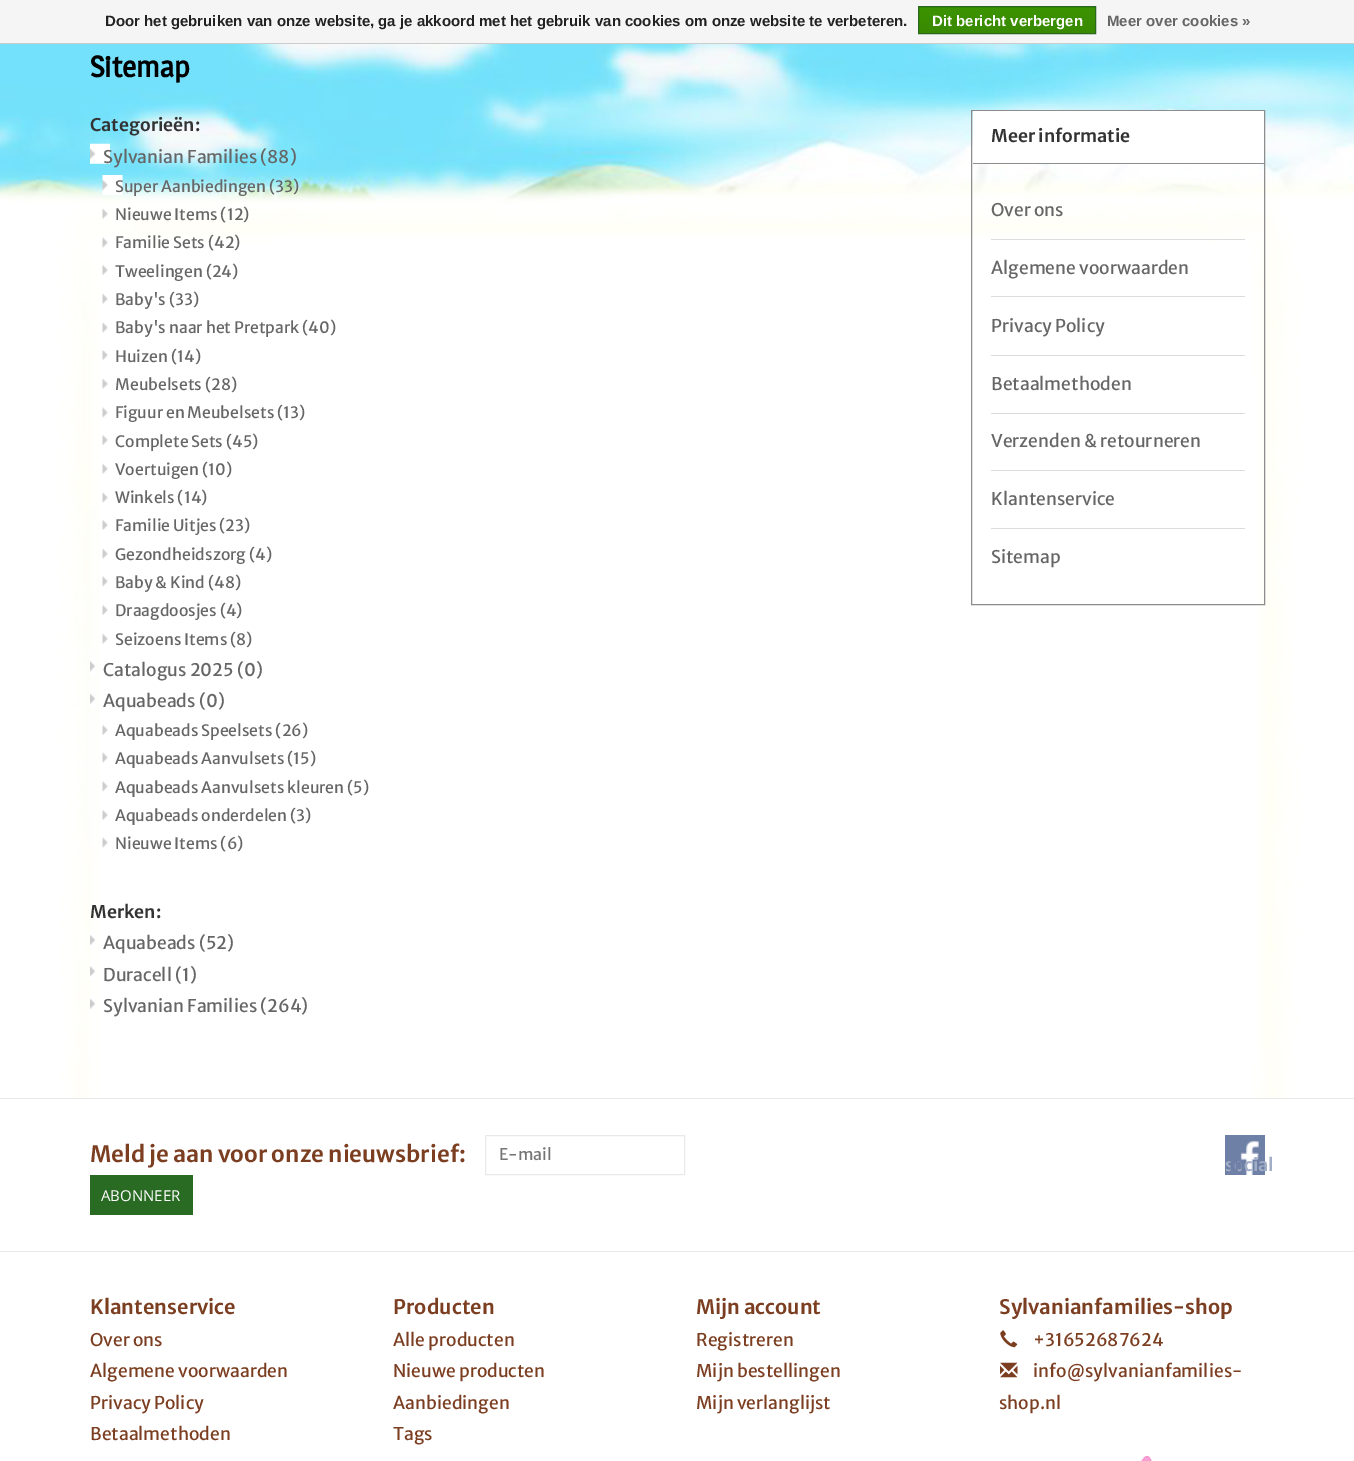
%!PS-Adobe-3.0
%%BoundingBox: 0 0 1354 1461
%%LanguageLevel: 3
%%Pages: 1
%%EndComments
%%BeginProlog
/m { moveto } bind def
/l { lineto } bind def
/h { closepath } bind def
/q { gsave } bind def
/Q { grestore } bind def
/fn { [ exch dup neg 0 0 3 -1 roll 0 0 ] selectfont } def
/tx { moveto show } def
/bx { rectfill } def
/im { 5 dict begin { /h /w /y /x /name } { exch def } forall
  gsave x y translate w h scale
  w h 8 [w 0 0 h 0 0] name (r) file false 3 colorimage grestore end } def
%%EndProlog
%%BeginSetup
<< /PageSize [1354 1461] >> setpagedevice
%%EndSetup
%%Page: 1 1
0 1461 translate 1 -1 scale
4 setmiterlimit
1 setgray
0 0 1354 1461 bx
(image0.raw) 0 44 1354 1054 im
0.961 setgray
0 0 1354 43 bx
0.8 setgray
0 43 1354 1 bx
/LiberationSans-Bold 15 fn
0.133 setgray
(Door het gebruiken van onze website, ga je akkoord met het gebruik van cookies om onze website te verbeteren.) 105 26 tx
q 918 7 m 1096 7 l 1096 8 l 918 8 l h clip newpath
<< /ShadingType 2 /ColorSpace /DeviceRGB /Coords [1007 -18 1007 7.5] /Extend [true true] /Function << /FunctionType 2 /Domain [0 1] /C0 [0.235 0.576 0] /C1 [0.224 0.541 0] /N 1 >> >> shfill Q
q 919 8 m 1095 8 l 1095 33 l 919 33 l h clip newpath
<< /ShadingType 2 /ColorSpace /DeviceRGB /Coords [1007 7.5 1007 33] /Extend [true true] /Function << /FunctionType 2 /Domain [0 1] /C0 [0.235 0.576 0] /C1 [0.224 0.541 0] /N 1 >> >> shfill Q
0.161 0.412 0.114 setrgbcolor
918.5 6.5 177 27 rectstroke
1 setgray
(Dit bericht verbergen) 932 26 tx
0.4 setgray
(Meer over cookies ») 1107 26 tx
/Magra-Bold 29.5 fn
0 setgray
(Sitemap) 90 77 tx
/MerriweatherSans-SemiBold 17.5 fn
0.2 setgray
(Categorieën:) 90 131 tx
(image1.raw) 90 143 20 21 im
/MerriweatherSans-Regular 17.5 fn
0.4 setgray
(Sylvanian Families \(88\)) 103 163 tx
(image2.raw) 102 175 21 20 im
/MerriweatherSans-Regular 15.75 fn
(Super Aanbiedingen \(33\)) 115 192 tx
(image3.raw) 102 208 6 12 im
(Nieuwe Items \(12\)) 115 220 tx
(image4.raw) 102 237 6 11 im
(Familie Sets \(42\)) 115 248 tx
(image5.raw) 102 265 6 10 im
(Tweelingen \(24\)) 115 277 tx
(image6.raw) 102 293 6 11 im
(Baby's \(33\)) 115 305 tx
(image7.raw) 102 322 6 11 im
(Baby's naar het Pretpark \(40\)) 115 333 tx
(image8.raw) 102 350 6 10 im
(Huizen \(14\)) 115 362 tx
(image9.raw) 102 378 6 11 im
(Meubelsets \(28\)) 115 390 tx
(image7.raw) 102 407 6 11 im
(Figuur en Meubelsets \(13\)) 115 418 tx
(image10.raw) 102 435 6 10 im
(Complete Sets \(45\)) 115 447 tx
(image9.raw) 102 463 6 11 im
(Voertuigen \(10\)) 115 475 tx
(image7.raw) 102 492 6 11 im
(Winkels \(14\)) 115 503 tx
(image10.raw) 102 520 6 10 im
(Familie Uitjes \(23\)) 115 531 tx
(image9.raw) 102 548 6 11 im
(Gezondheidszorg \(4\)) 115 560 tx
(image11.raw) 102 576 6 11 im
(Baby & Kind \(48\)) 115 588 tx
(image10.raw) 102 605 6 10 im
(Draagdoosjes \(4\)) 115 616 tx
(image9.raw) 102 633 6 11 im
(Seizoens Items \(8\)) 115 645 tx
(image12.raw) 90 657 5 19 im
/MerriweatherSans-Regular 17.5 fn
(Catalogus 2025 \(0\)) 103 676 tx
(image13.raw) 90 689 5 19 im
(Aquabeads \(0\)) 103 707 tx
(image10.raw) 102 725 6 10 im
/MerriweatherSans-Regular 15.75 fn
(Aquabeads Speelsets \(26\)) 115 736 tx
(image7.raw) 102 752 6 11 im
(Aquabeads Aanvulsets \(15\)) 115 764 tx
(image11.raw) 102 781 6 11 im
(Aquabeads Aanvulsets kleuren \(5\)) 115 793 tx
(image10.raw) 102 810 6 10 im
(Aquabeads onderdelen \(3\)) 115 821 tx
(image7.raw) 102 837 6 11 im
(Nieuwe Items \(6\)) 115 849 tx
/MerriweatherSans-SemiBold 17.5 fn
0.2 setgray
(Merken:) 90 918 tx
(image14.raw) 90 930 5 20 im
/MerriweatherSans-Regular 17.5 fn
0.4 setgray
(Aquabeads \(52\)) 103 949 tx
(image15.raw) 90 961 5 20 im
(Duracell \(1\)) 103 981 tx
(image16.raw) 90 994 5 16 im
(Sylvanian Families \(264\)) 103 1012 tx
0.553 setgray
971.5 110.5 293 494 rectstroke
1 setgray
973 111 291 52 bx
0.553 setgray
973 163 291 1 bx
/MerriweatherSans-SemiBold 17.5 fn
0.2 setgray
(Meer informatie) 991 142 tx
0.863 setgray
991 239 254 1 bx
/MerriweatherSans-Regular 17.5 fn
0.4 setgray
(Over ons) 991 216 tx
0.863 setgray
991 296 254 1 bx
0.4 setgray
(Algemene voorwaarden) 991 274 tx
0.863 setgray
991 355 254 1 bx
0.4 setgray
(Privacy Policy) 991 332 tx
0.863 setgray
991 413 254 1 bx
0.4 setgray
(Betaalmethoden) 991 390 tx
0.863 setgray
991 470 254 1 bx
0.4 setgray
(Verzenden & retourneren) 991 447 tx
0.863 setgray
991 528 254 1 bx
0.4 setgray
(Klantenservice) 991 505 tx
(Sitemap) 991 563 tx
0.914 setgray
0 1098 1354 1 bx
/MerriweatherSans-SemiBold 22.5 fn
0.486 0.243 0.129 setrgbcolor
(Meld je aan voor onze nieuwsbrief:) 90 1162 tx
0.914 setgray
485.5 1135.5 199 39 rectstroke
/MerriweatherSans-Regular 16 fn
0.459 setgray
(E-mail) 499 1160 tx
0.161 0.42 0.137 setrgbcolor
90 1175 103 40 bx
/OpenSans-Regular 15 fn
1 setgray
(ABONNEER) 101 1201 tx
(image17.raw) 1225 1135 40 40 im
/MerriweatherSans-SemiBold 17.5 fn
0.635 0.678 0.776 setrgbcolor
(social) 1225 1171 tx
0.435 0.502 0.651 setrgbcolor
(in) 1229 1171 tx
0.914 setgray
0 1251 1354 1 bx
/MerriweatherSans-SemiBold 20 fn
0.486 0.243 0.129 setrgbcolor
(Klantenservice) 90 1314 tx
/MerriweatherSans-Regular 17.5 fn
(Over ons) 90 1346 tx
(Algemene voorwaarden) 90 1377 tx
(Privacy Policy) 90 1409 tx
(Betaalmethoden) 90 1440 tx
/MerriweatherSans-SemiBold 20 fn
(Producten) 393 1314 tx
/MerriweatherSans-Regular 17.5 fn
(Alle producten) 393 1346 tx
(Nieuwe producten) 393 1377 tx
(Aanbiedingen) 393 1409 tx
(Tags) 393 1440 tx
/MerriweatherSans-SemiBold 20 fn
(Mijn account) 696 1314 tx
/MerriweatherSans-Regular 17.5 fn
(Registreren) 696 1346 tx
(Mijn bestellingen) 696 1377 tx
(Mijn verlanglijst) 696 1409 tx
/MerriweatherSans-SemiBold 20 fn
(Sylvanianfamilies-shop) 999 1314 tx
(image18.raw) 1000 1330 18 18 im
/MerriweatherSans-Regular 17.5 fn
(+31652687624) 1033 1346 tx
(image19.raw) 1000 1362 18 16 im
(info@sylvanianfamilies-) 1033 1377 tx
(shop.nl) 999 1409 tx
(image20.raw) 1141 1456 11 5 im
showpage
%%EOF
